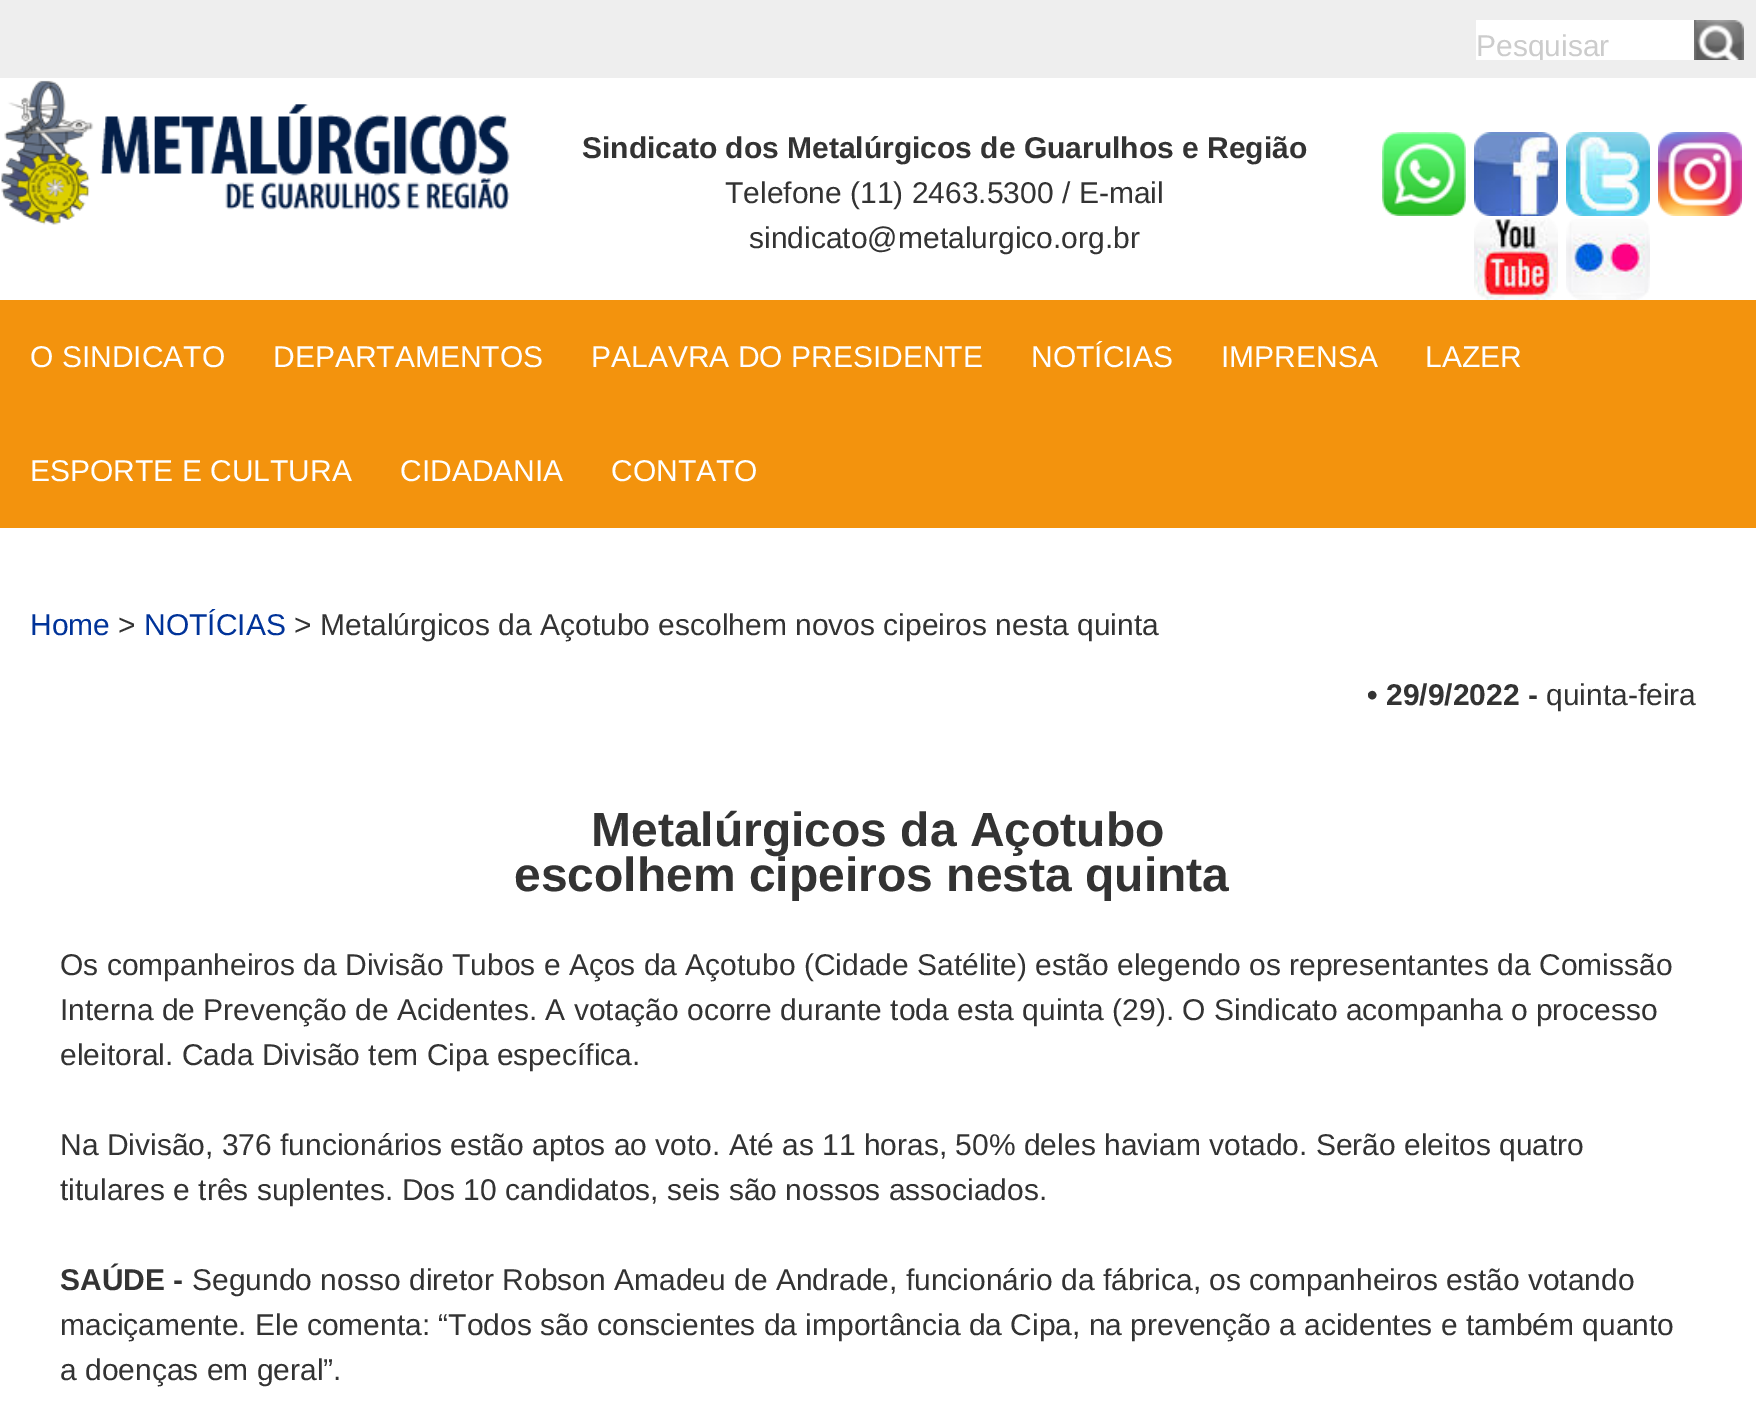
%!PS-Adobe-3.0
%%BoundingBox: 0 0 1756 1406
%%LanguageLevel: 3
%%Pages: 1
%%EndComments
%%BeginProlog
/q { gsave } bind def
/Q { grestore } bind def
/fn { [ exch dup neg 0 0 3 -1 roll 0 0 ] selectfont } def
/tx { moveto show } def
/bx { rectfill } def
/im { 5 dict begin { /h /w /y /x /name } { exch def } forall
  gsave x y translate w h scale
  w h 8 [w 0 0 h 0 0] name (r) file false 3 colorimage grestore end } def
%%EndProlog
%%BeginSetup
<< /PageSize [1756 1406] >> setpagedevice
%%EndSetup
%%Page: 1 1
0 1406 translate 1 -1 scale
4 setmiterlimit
1 setgray
0 0 1756 1406 bx
0.933 setgray
0 0 1756 78 bx
1 setgray
1476 20 218 40 bx
(image0.raw) 1694 20 50 40 im
q
1476 28 220 32 rectclip
/LiberationSans-Regular 30 fn
0.8 setgray
(Pesquisar) 1476 56 tx
Q
(image1.raw) 1 80 509 145 im
/LiberationSans-Bold 30 fn
0.2 setgray
(Sindicato dos Metalúrgicos de Guarulhos e Região) 582 158 tx
/LiberationSans-Regular 30 fn
(Telefone \(11\) 2463.5300 / E-mail) 725 203 tx
(sindicato@metalurgico.org.br) 749 248 tx
(image2.raw) 1382 132 84 84 im
(image3.raw) 1474 132 84 84 im
(image4.raw) 1566 132 84 84 im
(image5.raw) 1658 132 84 84 im
(image6.raw) 1474 218 84 82 im
(image7.raw) 1566 219 84 81 im
0.953 0.576 0.051 setrgbcolor
0 300 1756 228 bx
1 setgray
(O SINDICATO) 30 367 tx
(DEPARTAMENTOS) 273 367 tx
(PALAVRA DO PRESIDENTE) 591 367 tx
(NOTÍCIAS) 1031 367 tx
(IMPRENSA) 1221 367 tx
(LAZER) 1425 367 tx
(ESPORTE E CULTURA) 30 481 tx
(CIDADANIA) 400 481 tx
(CONTATO) 611 481 tx
0 0.2 0.6 setrgbcolor
(Home) 30 635 tx
0.2 setgray
(>) 118 635 tx
0 0.2 0.6 setrgbcolor
(NOTÍCIAS) 144 635 tx
0.2 setgray
(> Metalúrgicos da Açotubo escolhem novos cipeiros nesta quinta) 294 635 tx
/LiberationSans-Bold 30 fn
(• 29/9/2022 -) 1367 705 tx
/LiberationSans-Regular 30 fn
(quinta-feira) 1546 705 tx
/LiberationSans-Bold 48 fn
(Metalúrgicos da Açotubo) 591 846 tx
(escolhem cipeiros nesta quinta) 514 891 tx
/LiberationSans-Regular 30 fn
(Os companheiros da Divisão Tubos e Aços da Açotubo \(Cidade Satélite\) estão elegendo os representantes da Comissão) 60 975 tx
(Interna de Prevenção de Acidentes. A votação ocorre durante toda esta quinta \(29\). O Sindicato acompanha o processo) 60 1020 tx
(eleitoral. Cada Divisão tem Cipa específica.) 60 1065 tx
(Na Divisão, 376 funcionários estão aptos ao voto. Até as 11 horas, 50% deles haviam votado. Serão eleitos quatro) 60 1155 tx
(titulares e três suplentes. Dos 10 candidatos, seis são nossos associados.) 60 1200 tx
/LiberationSans-Bold 30 fn
(SAÚDE -) 60 1290 tx
/LiberationSans-Regular 30 fn
(Segundo nosso diretor Robson Amadeu de Andrade, funcionário da fábrica, os companheiros estão votando) 192 1290 tx
(maciçamente. Ele comenta: “Todos são conscientes da importância da Cipa, na prevenção a acidentes e também quanto) 60 1335 tx
(a doenças em geral”.) 60 1380 tx
showpage
%%EOF
